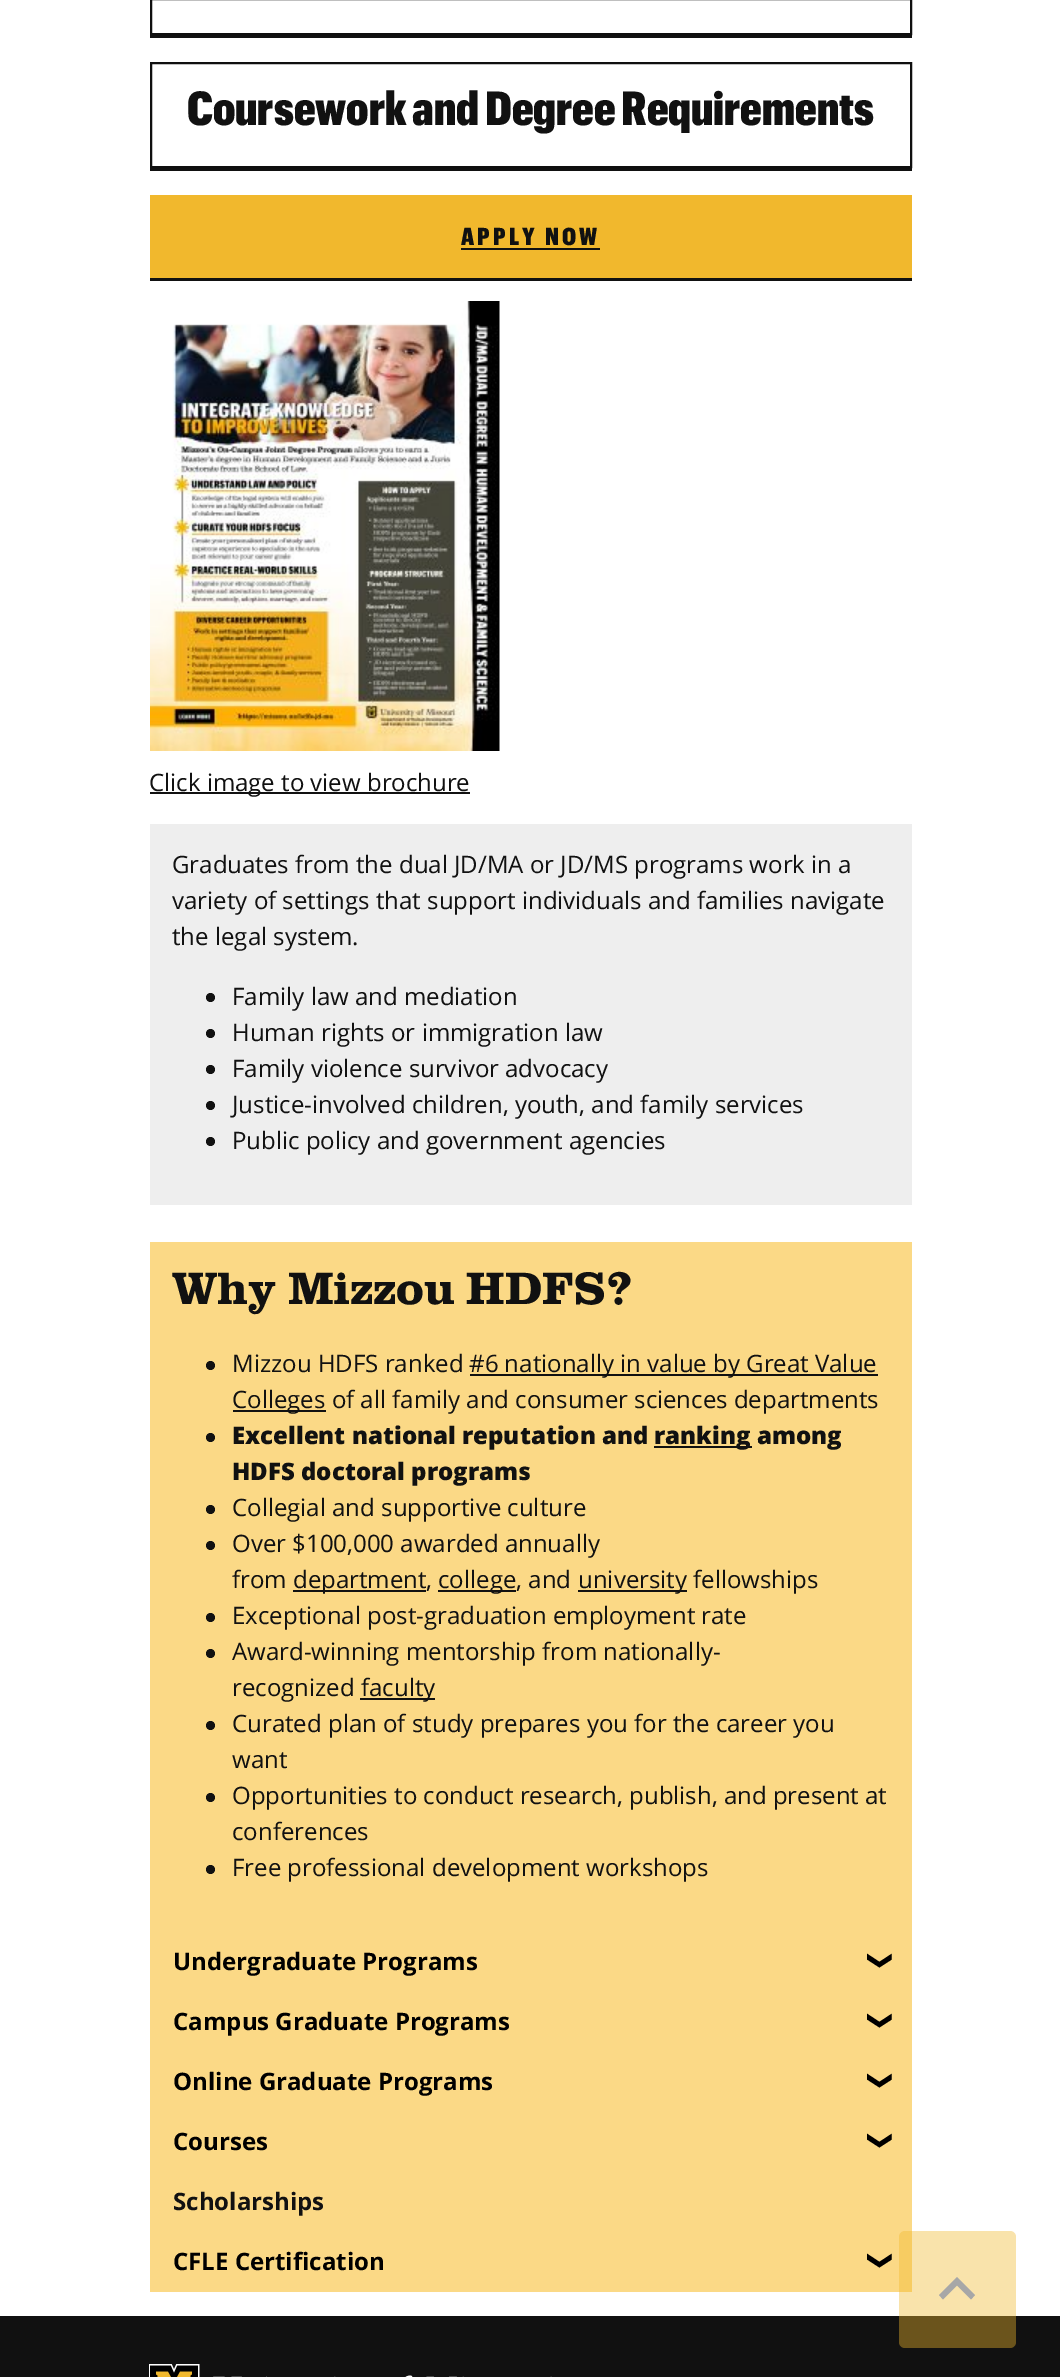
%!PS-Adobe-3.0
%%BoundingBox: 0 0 1060 2377
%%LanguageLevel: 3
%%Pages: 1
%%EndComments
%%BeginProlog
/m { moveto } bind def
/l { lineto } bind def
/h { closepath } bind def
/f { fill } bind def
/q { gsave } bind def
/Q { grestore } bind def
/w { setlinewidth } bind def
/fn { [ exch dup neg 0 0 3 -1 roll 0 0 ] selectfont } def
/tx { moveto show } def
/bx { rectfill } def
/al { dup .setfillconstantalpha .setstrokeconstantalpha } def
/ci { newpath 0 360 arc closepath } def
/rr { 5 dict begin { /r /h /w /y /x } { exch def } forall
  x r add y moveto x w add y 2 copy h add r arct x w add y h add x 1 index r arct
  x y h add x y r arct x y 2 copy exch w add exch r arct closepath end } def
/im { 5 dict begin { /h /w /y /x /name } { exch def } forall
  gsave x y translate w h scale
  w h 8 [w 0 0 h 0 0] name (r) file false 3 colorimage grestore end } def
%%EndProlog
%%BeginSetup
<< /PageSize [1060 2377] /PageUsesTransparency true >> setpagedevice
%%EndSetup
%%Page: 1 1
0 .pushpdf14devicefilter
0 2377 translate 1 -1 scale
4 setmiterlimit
1 setgray
0 0 1060 2377 bx
0.067 setgray
150 35 762 3 bx
0.059 setgray
2 w
151 -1 760 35 rectstroke
0.067 setgray
150 168 762 3 bx
0.059 setgray
151 63 760 104 rectstroke
/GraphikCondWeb-ExtraBold 46.9 fn
0.067 setgray
(Coursework and Degree Requirements) 187 125 tx
150 278 762 3 bx
0.945 0.722 0.176 setrgbcolor
150 195 762 83 bx
/GraphikCondWeb-ExtraBold 24 fn
0.067 setgray
461 245 m 3.25 0 (APPLY NOW) ashow
461 248 139 2 bx
(image0.raw) 150 301 350 450 im
150 792 320 2 bx
/OpenSans-Regular 24 fn
(Click image to view brochure) 149 791 tx
0.933 setgray
150 824 762 381 bx
0.067 setgray
(Graduates from the dual JD/MA or JD/MS programs work in a) 172 873 tx
(variety of settings that support individuals and families navigate) 172 909 tx
(the legal system.) 172 945 tx
210.5 997.5 4.5 ci f
(Family law and mediation) 232 1005 tx
210.5 1033.5 4.5 ci f
(Human rights or immigration law) 232 1041 tx
210.5 1069.5 4.5 ci f
(Family violence survivor advocacy) 232 1077 tx
210.5 1105.5 4.5 ci f
(Justice-involved children, youth, and family services) 232 1113 tx
210.5 1141.5 4.5 ci f
(Public policy and government agencies) 232 1149 tx
0.984 0.851 0.525 setrgbcolor
150 1242 762 1050 bx
/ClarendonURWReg-Regular 46.9 fn
0.067 setgray
(Why Mizzou HDFS?) 172 1304 tx
210.5 1365.5 4.5 ci f
/OpenSans-Regular 24 fn
(Mizzou HDFS ranked) 232 1372 tx
470 1374 408 2 bx
(#6 nationally in value by Great Value) 469 1372 tx
233 1410 93 2 bx
(Colleges of all family and consumer sciences departments) 232 1408 tx
210.5 1437.5 4.5 ci f
/OpenSans-ExtraBold 24 fn
(Excellent national reputation and) 232 1444 tx
654 1446 98 2 bx
(ranking among) 654 1444 tx
(HDFS doctoral programs) 232 1480 tx
210.5 1509.5 4.5 ci f
/OpenSans-Regular 24 fn
(Collegial and supportive culture) 232 1516 tx
210.5 1545.5 4.5 ci f
(Over $100,000 awarded annually) 232 1552 tx
(from) 232 1588 tx
293 1590 133 2 bx
(department,) 293 1588 tx
438 1590 78 2 bx
(college, and) 438 1588 tx
578 1590 109 2 bx
(university fellowships) 578 1588 tx
210.5 1617.5 4.5 ci f
(Exceptional post-graduation employment rate) 232 1624 tx
210.5 1653.5 4.5 ci f
(Award-winning mentorship from nationally-) 232 1660 tx
(recognized) 232 1696 tx
360 1698 75 2 bx
(faculty) 361 1696 tx
210.5 1725.5 4.5 ci f
(Curated plan of study prepares you for the career you) 232 1732 tx
(want) 232 1768 tx
210.5 1797.5 4.5 ci f
(Opportunities to conduct research, publish, and present at) 232 1804 tx
(conferences) 232 1840 tx
210.5 1869.5 4.5 ci f
(Free professional development workshops) 232 1876 tx
/OpenSans-Bold 24 fn
0 setgray
(Undergraduate Programs) 173 1970 tx
/DejaVuSans-Bold 24 fn
q 886 1971 translate -90 rotate 0 0 m (❮) show Q
/OpenSans-Bold 24 fn
(Campus Graduate Programs) 173 2030 tx
/DejaVuSans-Bold 24 fn
q 886 2031 translate -90 rotate 0 0 m (❮) show Q
/OpenSans-Bold 24 fn
(Online Graduate Programs) 173 2090 tx
/DejaVuSans-Bold 24 fn
q 886 2091 translate -90 rotate 0 0 m (❮) show Q
/OpenSans-Bold 24 fn
(Courses) 173 2150 tx
/DejaVuSans-Bold 24 fn
q 886 2151 translate -90 rotate 0 0 m (❮) show Q
/OpenSans-Bold 24 fn
0.067 setgray
(Scholarships) 173 2210 tx
0 setgray
(CFLE Certification) 173 2270 tx
/DejaVuSans-Bold 24 fn
q 886 2271 translate -90 rotate 0 0 m (❮) show Q
0.067 setgray
0 2316 1060 61 bx
(image1.raw) 149 2364 51 13 im
(image2.raw) 213 2375 339 2 im
0.4 al
0.945 0.722 0.176 setrgbcolor
899 2231 117 117 6 rr f
1 al
0.655 setgray
957 2277 m 975 2295 l 971 2299.5 l 957 2285.5 l 943 2299.5 l 939 2295 l h f
.poppdf14devicefilter showpage
%%EOF
